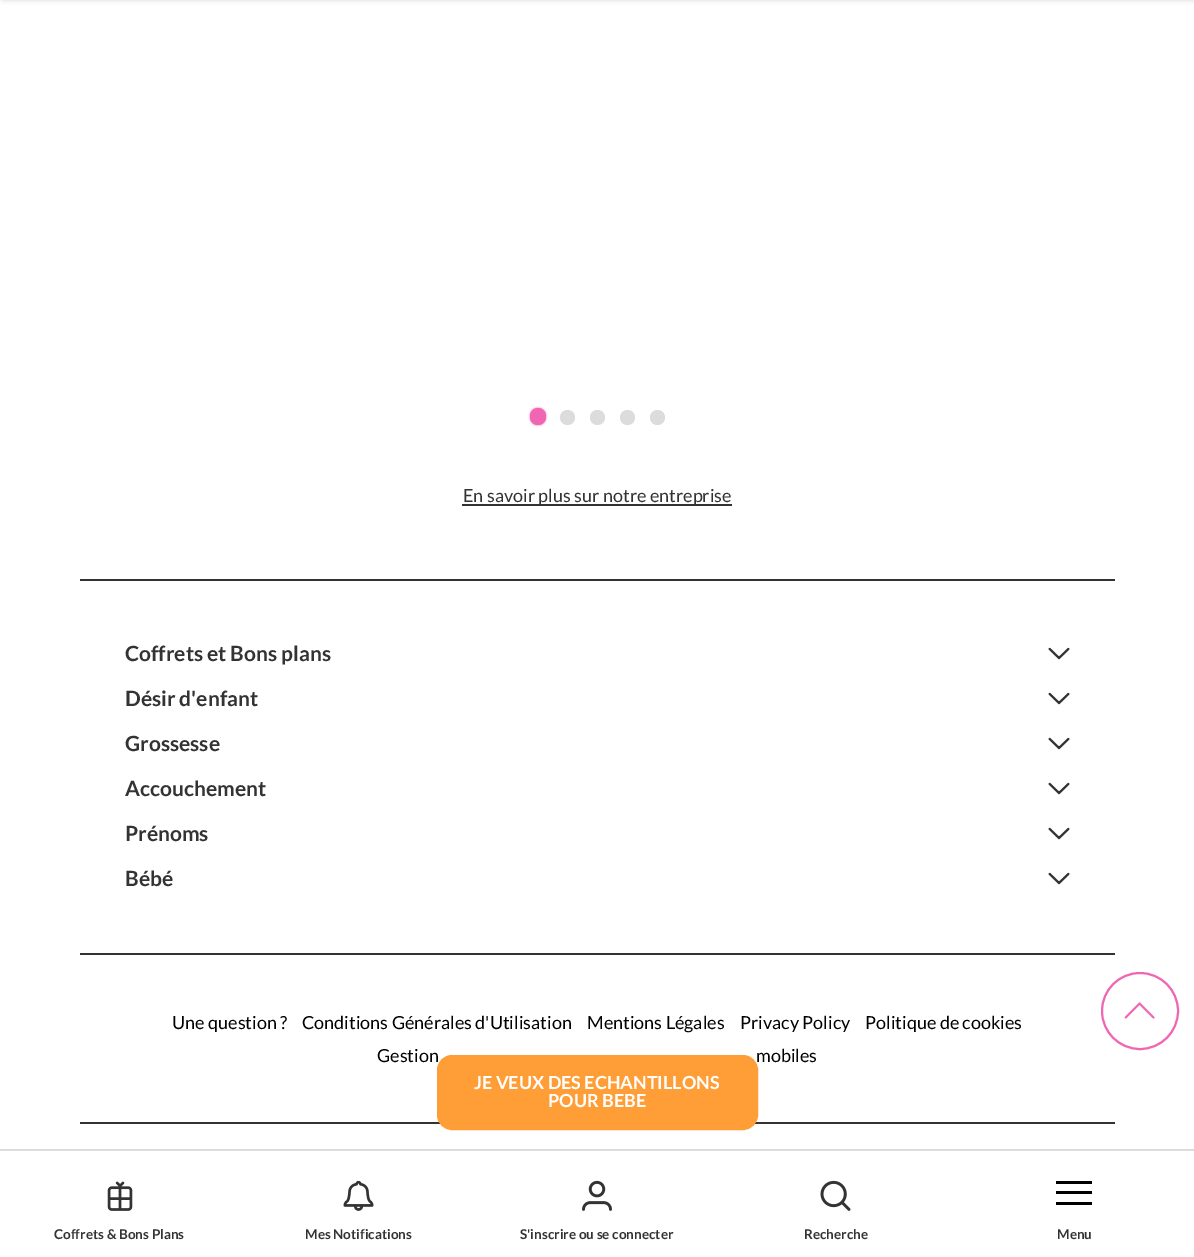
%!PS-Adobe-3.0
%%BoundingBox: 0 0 1194 1257
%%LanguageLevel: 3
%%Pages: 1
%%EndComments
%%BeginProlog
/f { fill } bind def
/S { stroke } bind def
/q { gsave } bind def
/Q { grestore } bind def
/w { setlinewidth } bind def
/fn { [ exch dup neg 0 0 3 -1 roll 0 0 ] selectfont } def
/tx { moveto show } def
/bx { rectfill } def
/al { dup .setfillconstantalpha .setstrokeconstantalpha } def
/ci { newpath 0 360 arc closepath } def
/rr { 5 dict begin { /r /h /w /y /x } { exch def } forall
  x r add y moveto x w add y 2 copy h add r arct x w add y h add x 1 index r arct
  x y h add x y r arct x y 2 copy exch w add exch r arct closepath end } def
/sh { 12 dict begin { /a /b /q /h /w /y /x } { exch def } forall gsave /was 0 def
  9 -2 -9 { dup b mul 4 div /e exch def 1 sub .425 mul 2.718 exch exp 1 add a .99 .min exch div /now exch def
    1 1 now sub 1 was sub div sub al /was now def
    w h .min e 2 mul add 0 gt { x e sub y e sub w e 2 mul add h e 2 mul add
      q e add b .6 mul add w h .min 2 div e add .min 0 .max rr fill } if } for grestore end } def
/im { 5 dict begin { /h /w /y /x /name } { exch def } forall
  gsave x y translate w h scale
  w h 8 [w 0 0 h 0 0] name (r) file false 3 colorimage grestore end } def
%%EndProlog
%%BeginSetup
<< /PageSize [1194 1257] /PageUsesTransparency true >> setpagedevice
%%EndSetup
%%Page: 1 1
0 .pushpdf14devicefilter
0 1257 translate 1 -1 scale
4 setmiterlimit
1 setgray
0 0 1194 1257 bx
0.863 setgray
537.5 417.5 7.5 ci f
0.941 0.4 0.698 setrgbcolor
530 408 16 17 8 1 1 sh
530 408 16 17 8 rr f
0.863 setgray
567.5 417.5 7.5 ci f
597.5 417.5 7.5 ci f
627.5 417.5 7.5 ci f
657.5 417.5 7.5 ci f
0.2 setgray
462 504 270 2 bx
/Lato-Regular 18 fn
(En savoir plus sur notre entreprise) 463 502 tx
80 579 1035 2 bx
/Lato-Bold 21 fn
(Coffrets et Bons plans) 125 661 tx
(image0.raw) 1048 647 22 13 im
(Désir d'enfant) 125 706 tx
(image0.raw) 1048 692 22 13 im
(Grossesse) 125 751 tx
(image0.raw) 1048 737 22 13 im
(Accouchement) 125 796 tx
(image0.raw) 1048 782 22 13 im
(Prénoms) 125 841 tx
(image0.raw) 1048 827 22 13 im
(Bébé) 125 886 tx
(image0.raw) 1048 872 22 13 im
80 953 1035 2 bx
/Lato-Regular 18 fn
0 setgray
(Une question ?) 172 1029 tx
(Conditions Générales d'Utilisation) 302 1029 tx
(Mentions Légales) 587 1029 tx
(Privacy Policy) 740 1029 tx
(Politique de cookies) 865 1029 tx
(Gestion) 377 1062 tx
(mobiles) 756 1062 tx
0.2 setgray
80 1122 1035 2 bx
0.941 0.4 0.698 setrgbcolor
2 w
1140 1011 38 ci S
(image1.raw) 1124 1002 31 17 im
1 0.62 0.212 setrgbcolor
438 1056 319 73 14 rr q f Q
S
/Lato-Bold 18 fn
1 setgray
(JE VEUX DES ECHANTILLONS) 474 1089 tx
(POUR BEBE) 548 1107 tx
0.2 setgray
3 -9 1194 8 0 3 0.3 sh
0.863 setgray
0 1149 1194 2 bx
(image2.raw) 107 1181 26 30 im
/Lato-Bold 13.5 fn
0.2 setgray
(Coffrets & Bons Plans) 54 1239 tx
(image3.raw) 343 1180 31 31 im
(Mes Notifications) 305 1239 tx
(image4.raw) 582 1180 30 31 im
(S'inscrire ou se connecter) 520 1239 tx
(image5.raw) 820 1180 31 31 im
(Recherche) 804 1239 tx
0 setgray
1056 1181 36 3 bx
1056 1191 36 3 bx
1056 1202 36 3 bx
0.2 setgray
(Menu) 1057 1239 tx
.poppdf14devicefilter showpage
%%EOF
